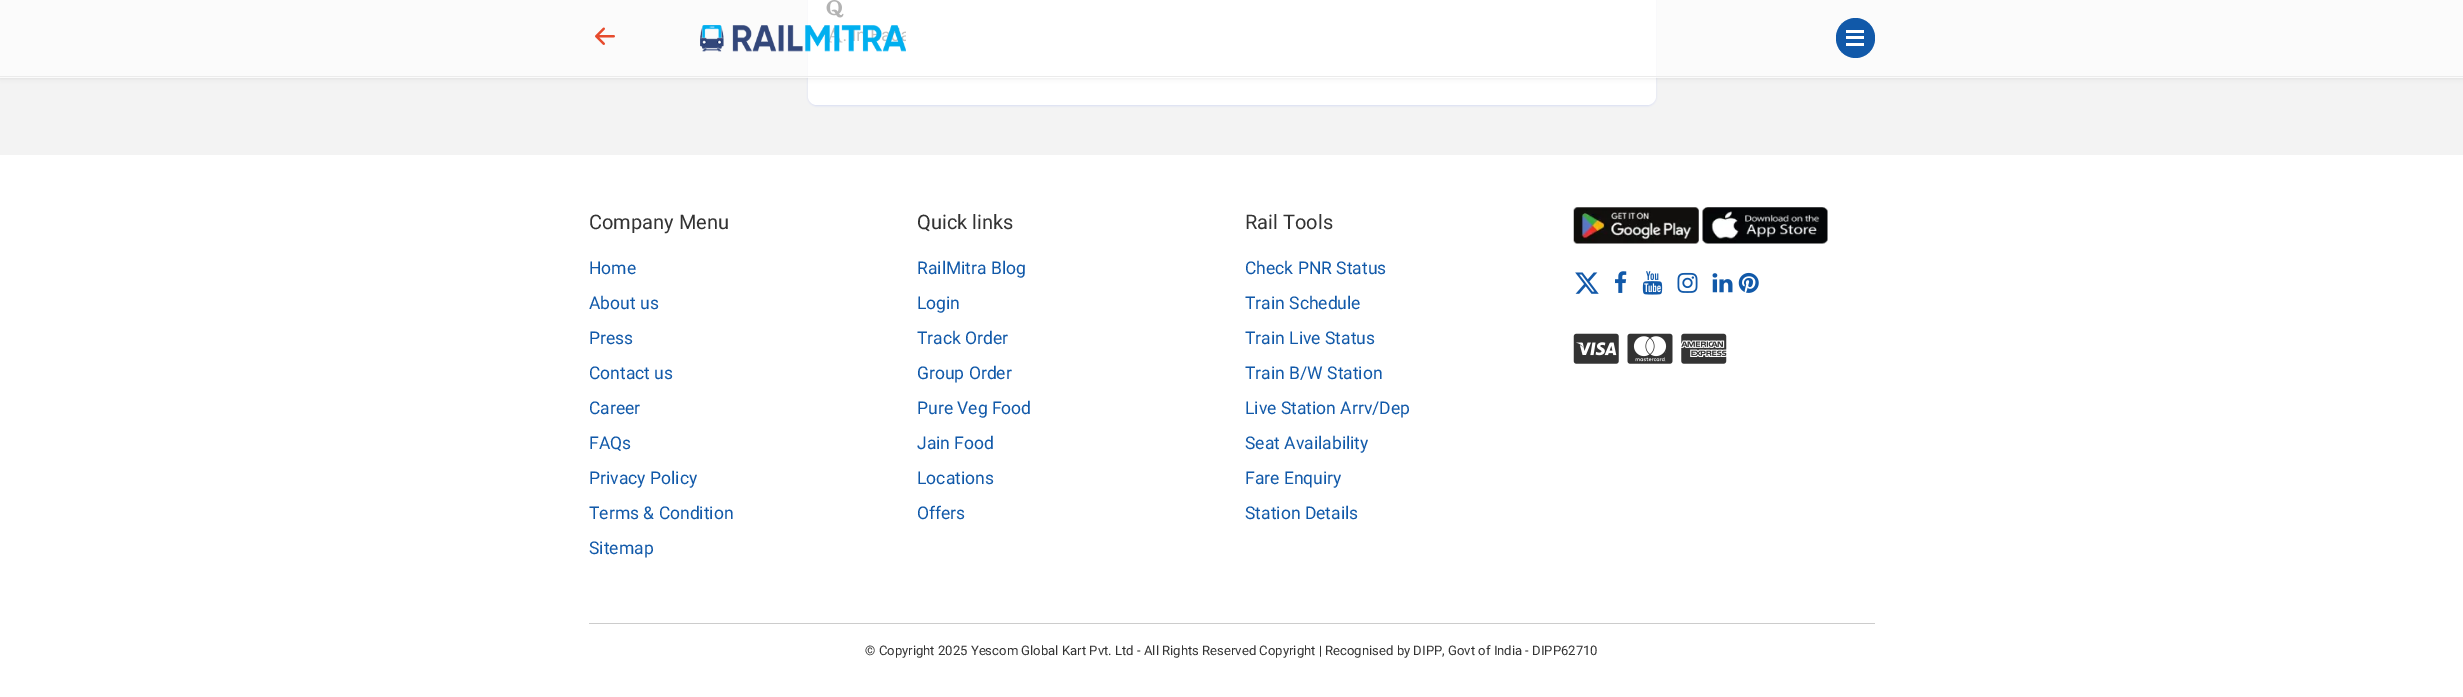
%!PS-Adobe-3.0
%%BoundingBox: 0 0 2463 697
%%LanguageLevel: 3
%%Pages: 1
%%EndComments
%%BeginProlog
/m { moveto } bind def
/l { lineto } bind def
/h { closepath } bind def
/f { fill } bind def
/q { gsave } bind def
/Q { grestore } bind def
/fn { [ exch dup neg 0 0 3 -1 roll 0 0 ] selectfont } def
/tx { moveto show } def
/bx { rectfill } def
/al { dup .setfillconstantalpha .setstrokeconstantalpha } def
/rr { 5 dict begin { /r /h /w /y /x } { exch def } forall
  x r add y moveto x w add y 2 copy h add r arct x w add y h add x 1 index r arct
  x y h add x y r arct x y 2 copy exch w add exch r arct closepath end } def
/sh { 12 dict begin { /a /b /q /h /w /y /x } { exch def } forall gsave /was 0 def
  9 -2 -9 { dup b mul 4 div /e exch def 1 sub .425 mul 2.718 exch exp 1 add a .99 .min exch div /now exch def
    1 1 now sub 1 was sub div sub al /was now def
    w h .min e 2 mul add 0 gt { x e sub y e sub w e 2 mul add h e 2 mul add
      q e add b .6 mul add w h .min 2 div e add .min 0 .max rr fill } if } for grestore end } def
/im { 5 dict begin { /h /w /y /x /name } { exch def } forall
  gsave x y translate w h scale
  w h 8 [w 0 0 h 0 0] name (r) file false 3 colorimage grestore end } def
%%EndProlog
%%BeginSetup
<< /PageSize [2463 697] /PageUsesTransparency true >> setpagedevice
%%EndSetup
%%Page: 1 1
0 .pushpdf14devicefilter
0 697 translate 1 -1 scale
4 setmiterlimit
0.953 setgray
0 0 2463 697 bx
0.843 0.871 0.957 setrgbcolor
808 -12 848 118 9 1 1 sh
1 setgray
808 -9 848 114 9 rr f
(image2.raw) 826 0 18 18 im
(image3.raw) 829 27 14 16 im
q
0 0 m 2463 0 l 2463 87 l 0 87 l h 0 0 m 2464 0 l 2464 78 l 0 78 l h eoclip newpath
0 setgray
0 0 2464 78 0 2.5 0.1 sh
Q
0.7 al
0 0 2463 78 bx
1 al
0.922 setgray
0 76 2463 1 bx
(image0.raw) 595 27 20 18 im
(image1.raw) 700 25 206 27 im
0.067 0.349 0.663 setrgbcolor
1836 18 39 40 19.5 rr f
1 setgray
1846 30 18 3 bx
1846 36 18 3 bx
1846 43 18 3 bx
0 155 2463 542 bx
/Roboto-Regular 20 fn
0.2 setgray
(Company Menu) 589 229 tx
/Roboto-Regular 17.5 fn
0.067 0.349 0.663 setrgbcolor
(Home) 589 274 tx
(About us) 589 309 tx
(Press) 589 344 tx
(Contact us) 589 379 tx
(Career) 589 414 tx
(FAQs) 589 449 tx
(Privacy Policy) 589 484 tx
(Terms & Condition) 589 519 tx
(Sitemap) 589 554 tx
/Roboto-Regular 20 fn
0.2 setgray
(Quick links) 917 229 tx
/Roboto-Regular 17.5 fn
0.067 0.349 0.663 setrgbcolor
(RailMitra Blog) 917 274 tx
(Login) 917 309 tx
(Track Order) 917 344 tx
(Group Order) 917 379 tx
(Pure Veg Food) 917 414 tx
(Jain Food) 917 449 tx
(Locations) 917 484 tx
(Offers) 917 519 tx
/Roboto-Regular 20 fn
0.2 setgray
(Rail Tools) 1245 229 tx
/Roboto-Regular 17.5 fn
0.067 0.349 0.663 setrgbcolor
(Check PNR Status) 1245 274 tx
(Train Schedule) 1245 309 tx
(Train Live Status) 1245 344 tx
(Train B/W Station) 1245 379 tx
(Live Station Arrv/Dep) 1245 414 tx
(Seat Availability) 1245 449 tx
(Fare Enquiry) 1245 484 tx
(Station Details) 1245 519 tx
(image4.raw) 1573 207 126 37 im
(image5.raw) 1702 207 126 37 im
(image6.raw) 1575 272 24 22 im
(image7.raw) 1615 271 12 22 im
(image8.raw) 1642 271 21 24 im
(image9.raw) 1677 272 21 21 im
(image10.raw) 1712 273 21 20 im
(image11.raw) 1738 272 21 21 im
(image12.raw) 1573 333 46 31 im
(image13.raw) 1627 333 46 31 im
(image14.raw) 1681 333 46 31 im
0.8 setgray
589 623 1286 1 bx
/Roboto-Regular 13.12 fn
0.2 setgray
(© Copyright 2025 Yescom Global Kart Pvt. Ltd - All Rights Reserved Copyright | Recognised by DIPP, Govt of India - DIPP62710) 865 655 tx
.poppdf14devicefilter showpage
%%EOF
